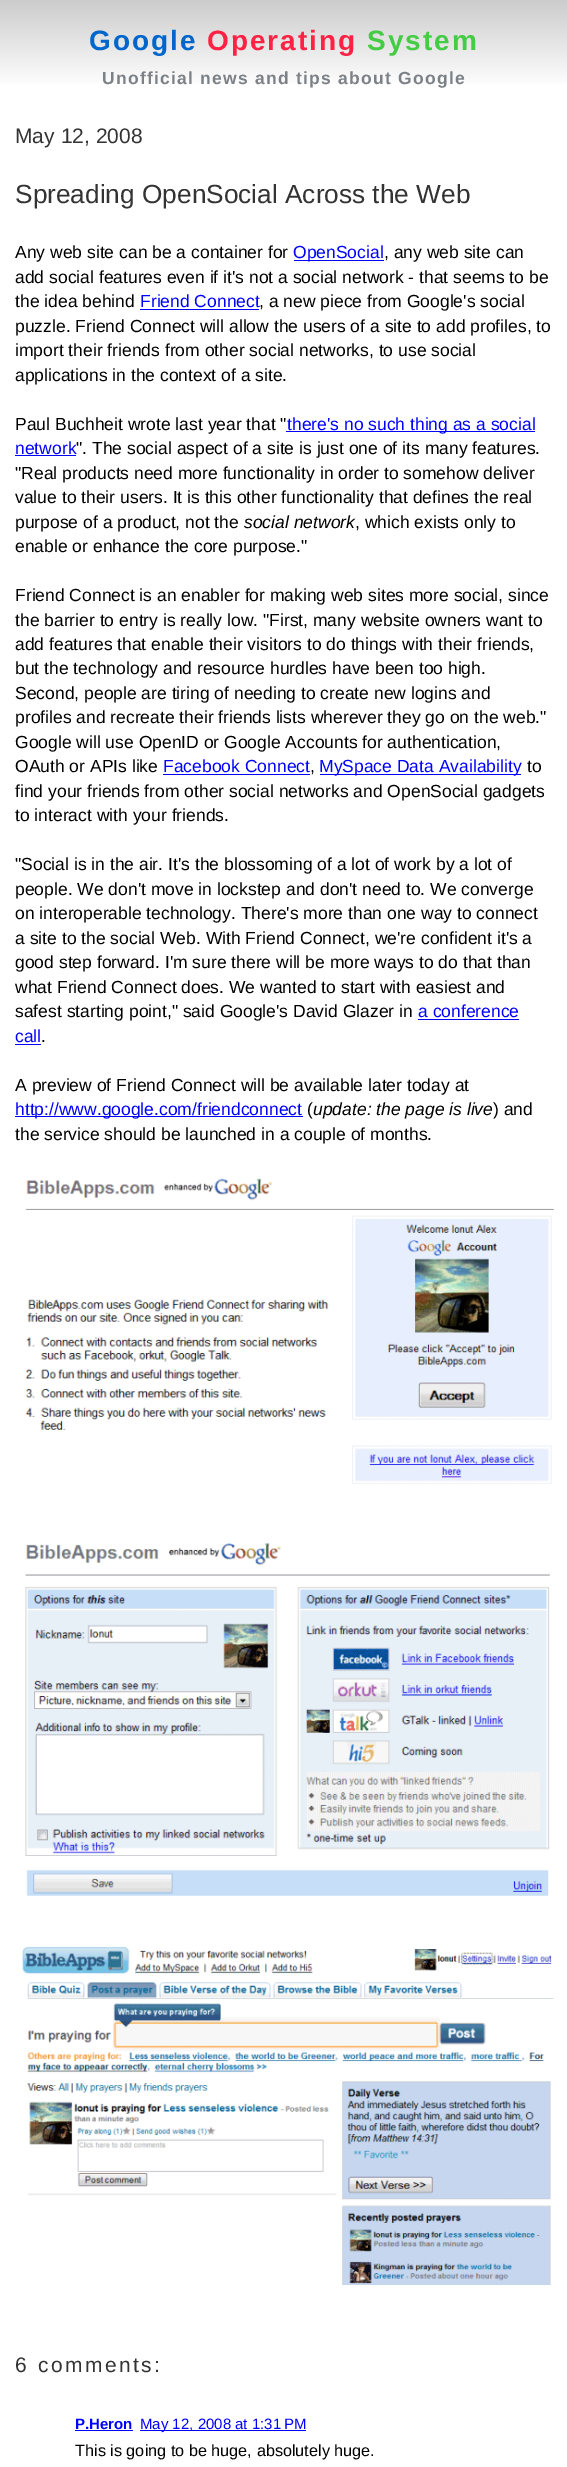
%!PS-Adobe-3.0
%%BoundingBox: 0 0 567 2467
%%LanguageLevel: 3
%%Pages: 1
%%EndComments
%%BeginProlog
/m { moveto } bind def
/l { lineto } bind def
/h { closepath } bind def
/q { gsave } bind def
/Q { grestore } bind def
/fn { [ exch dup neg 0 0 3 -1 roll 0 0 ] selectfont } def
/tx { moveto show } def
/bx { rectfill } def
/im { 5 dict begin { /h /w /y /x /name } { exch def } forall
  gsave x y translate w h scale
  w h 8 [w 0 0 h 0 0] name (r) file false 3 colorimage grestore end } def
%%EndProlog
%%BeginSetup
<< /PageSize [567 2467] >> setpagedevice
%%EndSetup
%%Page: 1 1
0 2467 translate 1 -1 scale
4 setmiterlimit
1 setgray
0 0 567 2467 bx
q 0 0 m 567 0 l 567 84 l 0 84 l h clip newpath
<< /ShadingType 2 /ColorSpace /DeviceRGB /Coords [0 0 0 88] /Extend [true true] /Function << /FunctionType 2 /Domain [0 1] /C0 [0.8 0.8 0.8] /C1 [1 1 1] /N 1 >> >> shfill Q
/LiberationSans-Bold 28 fn
0 0.4 0.8 setrgbcolor
89 50 m 2 0 (Google) ashow
1 0.133 0.267 setrgbcolor
207 50 m 2 0 (Operating) ashow
0.267 0.8 0.267 setrgbcolor
367 50 m 2 0 (System) ashow
/LiberationSans-Bold 17.5 fn
0.482 0.506 0.525 setrgbcolor
102 84 m 1.25 0 (Unofficial news and tips about Google) ashow
/LiberationSans-Regular 21 fn
0.2 setgray
(May 12, 2008) 15 143 tx
/LiberationSans-Regular 26.25 fn
(Spreading OpenSocial Across the Web) 15 203 tx
/LiberationSans-Regular 17.5 fn
0 setgray
(Any web site can be a container for) 15 258 tx
0 0 1 setrgbcolor
294 260 90 1 bx
(OpenSocial) 293 258 tx
0 setgray
(, any web site can) 384 258 tx
(add social features even if it's not a social network - that seems to be) 15 283 tx
(the idea behind) 15 307 tx
0 0 1 setrgbcolor
(Friend Connect) 140 307 tx
140 309 119 1 bx
0 setgray
(, a new piece from Google's social) 259 307 tx
(puzzle. Friend Connect will allow the users of a site to add profiles, to) 15 332 tx
(import their friends from other social networks, to use social) 15 356 tx
(applications in the context of a site.) 15 381 tx
(Paul Buchheit wrote last year that ") 15 430 tx
0 0 1 setrgbcolor
286 431 249 1 bx
(there's no such thing as a social) 287 430 tx
(network) 15 454 tx
15 455 61 1 bx
0 setgray
(". The social aspect of a site is just one of its many features.) 76 454 tx
("Real products need more functionality in order to somehow deliver) 15 479 tx
(value to their users. It is this other functionality that defines the real) 15 503 tx
(purpose of a product, not the) 15 528 tx
/LiberationSans-Italic 17.5 fn
(social network) 244 528 tx
/LiberationSans-Regular 17.5 fn
(, which exists only to) 355 528 tx
(enable or enhance the core purpose.") 15 552 tx
(Friend Connect is an enabler for making web sites more social, since) 15 601 tx
(the barrier to entry is really low. "First, many website owners want to) 15 626 tx
(add features that enable their visitors to do things with their friends,) 15 650 tx
(but the technology and resource hurdles have been too high.) 15 674 tx
(Second, people are tiring of needing to create new logins and) 15 699 tx
(profiles and recreate their friends lists wherever they go on the web.") 15 723 tx
(Google will use OpenID or Google Accounts for authentication,) 15 748 tx
(OAuth or APIs like) 15 772 tx
0 0 1 setrgbcolor
(Facebook Connect) 163 772 tx
163 774 147 1 bx
0 setgray
(,) 310 772 tx
0 0 1 setrgbcolor
320 774 201 1 bx
(MySpace Data Availability) 319 772 tx
0 setgray
(to) 527 772 tx
(find your friends from other social networks and OpenSocial gadgets) 15 797 tx
(to interact with your friends.) 15 821 tx
("Social is in the air. It's the blossoming of a lot of work by a lot of) 15 870 tx
(people. We don't move in lockstep and don't need to. We converge) 15 895 tx
(on interoperable technology. There's more than one way to connect) 15 919 tx
(a site to the social Web. With Friend Connect, we're confident it's a) 15 944 tx
(good step forward. I'm sure there will be more ways to do that than) 15 968 tx
(what Friend Connect does. We wanted to start with easiest and) 15 993 tx
(safest starting point," said Google's David Glazer in) 15 1017 tx
0 0 1 setrgbcolor
(a conference) 418 1017 tx
418 1019 101 1 bx
(call) 15 1042 tx
15 1044 26 1 bx
0 setgray
(.) 41 1042 tx
(A preview of Friend Connect will be available later today at) 15 1091 tx
0 0 1 setrgbcolor
15 1116 288 1 bx
(http://www.google.com/friendconnect) 15 1115 tx
0 setgray
(\() 307 1115 tx
/LiberationSans-Italic 17.5 fn
(update: the page is live) 313 1115 tx
/LiberationSans-Regular 17.5 fn
(\) and) 493 1115 tx
(the service should be launched in a couple of months.) 15 1140 tx
(image0.raw) 25 1178 529 306 im
(image1.raw) 25 1543 525 353 im
(image2.raw) 22 1946 532 339 im
/LiberationSans-Regular 21 fn
0.2 setgray
15 2372 m 2.5 0 (6 comments:) ashow
/LiberationSans-Bold 15 fn
0 0 1 setrgbcolor
(P.Heron) 75 2429 tx
75 2430 58 1 bx
140 2430 166 1 bx
/LiberationSans-Regular 15 fn
(May 12, 2008 at 1:31 PM) 140 2429 tx
/LiberationSans-Regular 16.25 fn
0 setgray
(This is going to be huge, absolutely huge.) 75 2456 tx
showpage
%%EOF
